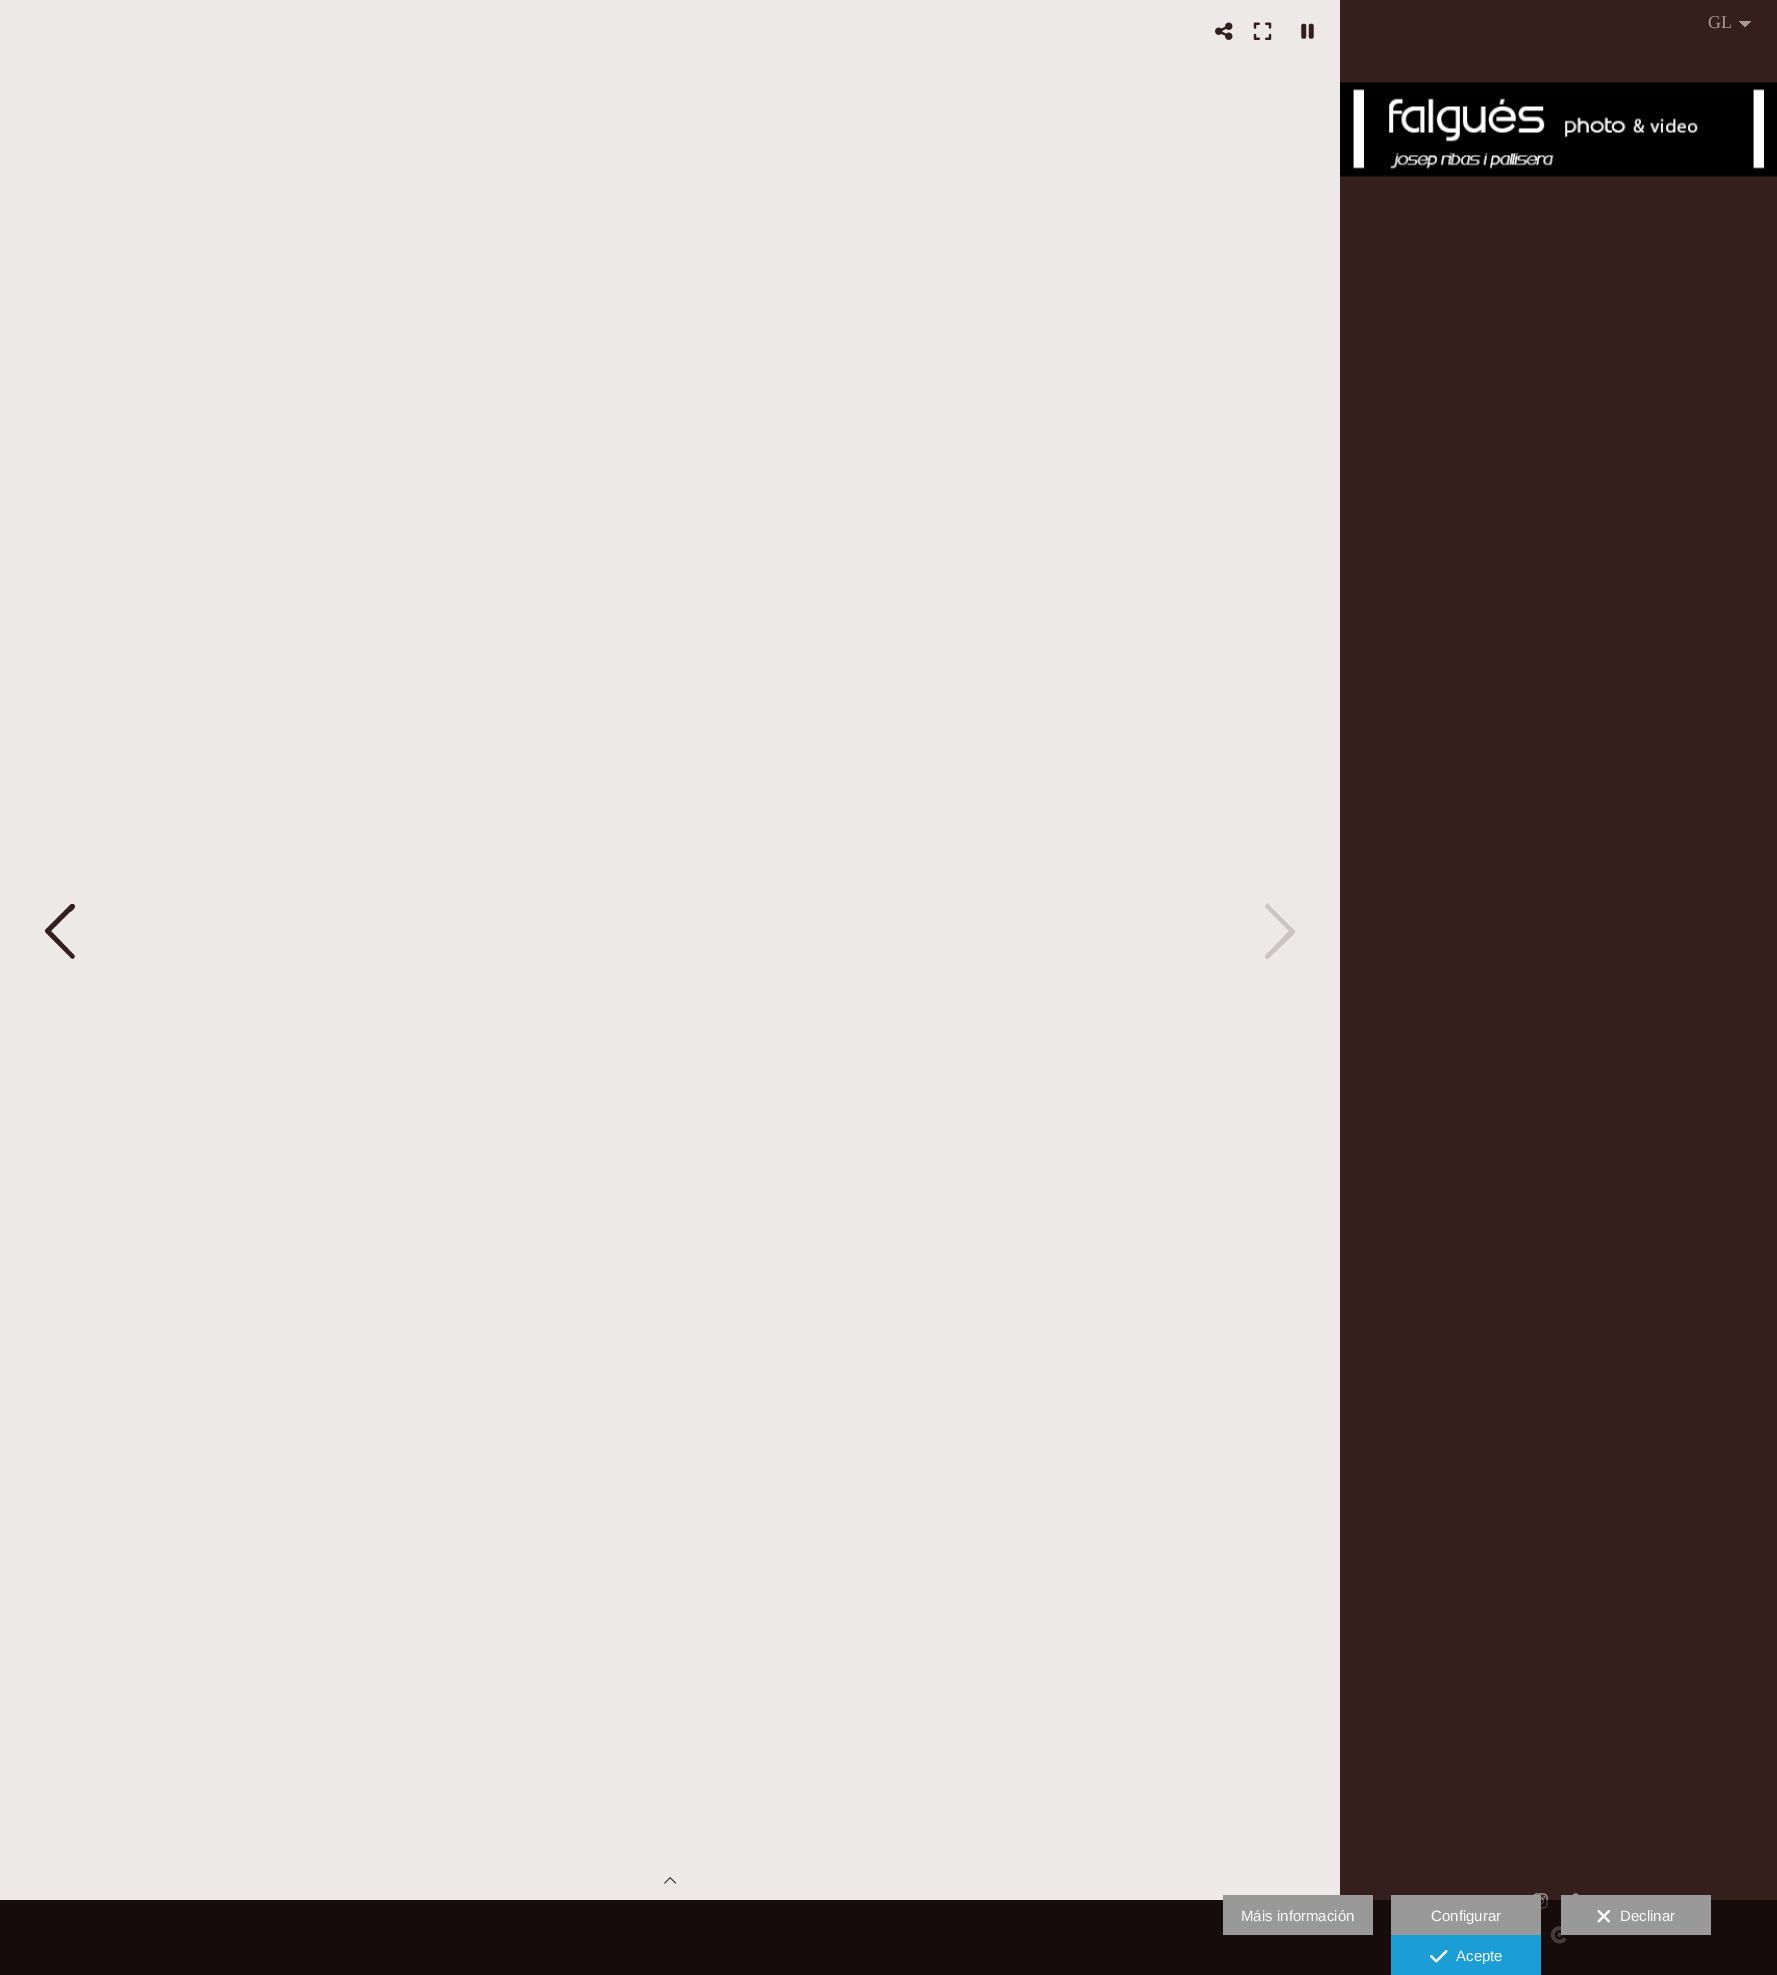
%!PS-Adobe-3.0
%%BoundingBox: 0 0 1777 1975
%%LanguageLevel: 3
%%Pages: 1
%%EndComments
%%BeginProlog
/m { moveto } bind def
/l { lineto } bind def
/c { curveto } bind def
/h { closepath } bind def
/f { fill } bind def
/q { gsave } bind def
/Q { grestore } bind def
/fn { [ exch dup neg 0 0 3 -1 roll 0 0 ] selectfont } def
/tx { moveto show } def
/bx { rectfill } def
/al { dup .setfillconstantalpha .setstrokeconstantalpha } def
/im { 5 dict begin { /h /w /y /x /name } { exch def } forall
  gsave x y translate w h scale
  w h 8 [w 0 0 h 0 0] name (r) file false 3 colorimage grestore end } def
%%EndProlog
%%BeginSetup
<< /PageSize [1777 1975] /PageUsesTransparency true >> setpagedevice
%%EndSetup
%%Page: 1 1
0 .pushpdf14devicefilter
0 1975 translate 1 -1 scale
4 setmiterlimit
0.929 0.914 0.91 setrgbcolor
0 0 1777 1975 bx
(image0.raw) 1215 22 18 18 im
(image1.raw) 1253 22 19 18 im
(image2.raw) 1301 23 13 16 im
0.204 0.122 0.11 setrgbcolor
46 933 m 45 932 45 931 45 930 c 71 904 l 73 904 l 78 906 72 911 70 912 c 51 931 l 74 955 l 75 956 75 957 74 958 c 73 959 72 959 71 958 c h f
0.8 0.769 0.765 setrgbcolor
1294 930 m 1295 930 1295 932 1295 933 c 1269 958 l 1267 959 l 1262 957 1268 952 1270 951 c 1289 931 l 1266 908 l 1265 907 1265 906 1266 905 c 1267 903 1268 903 1269 905 c h f
(image3.raw) 664 1877 13 7 im
0.204 0.122 0.11 setrgbcolor
0 1900 1340 75 bx
1340 0 437 1975 bx
(image4.raw) 1533 1893 15 16 im
(image5.raw) 1573 1893 6 2 im
(image6.raw) 1550 1926 17 18 im
q 1745 21 m 1751 21 l 1751 28 l 1745 28 l h clip newpath
<< /ShadingType 2 /ColorSpace /DeviceRGB /Coords [1745 22 1751 28] /Extend [true true] /Function << /FunctionType 3 /Domain [0 1] /Functions [<< /FunctionType 2 /Domain [0 1] /C0 [0.655 0.6 0.596] /C1 [0.655 0.6 0.596] /N 1 >> << /FunctionType 2 /Domain [0 1] /C0 [0.204 0.122 0.11] /C1 [0.204 0.122 0.11] /N 1 >>] /Bounds [0.5] /Encode [0 1 0 1] >> >> shfill Q
q 1739 21 m 1745 21 l 1745 28 l 1739 28 l h clip newpath
<< /ShadingType 2 /ColorSpace /DeviceRGB /Coords [1739 28 1745 22] /Extend [true true] /Function << /FunctionType 3 /Domain [0 1] /Functions [<< /FunctionType 2 /Domain [0 1] /C0 [0.204 0.122 0.11] /C1 [0.204 0.122 0.11] /N 1 >> << /FunctionType 2 /Domain [0 1] /C0 [0.655 0.6 0.596] /C1 [0.655 0.6 0.596] /N 1 >>] /Bounds [0.5] /Encode [0 1 0 1] >> >> shfill Q
/LiberationSerif-Regular 18 fn
0.655 0.6 0.596 setrgbcolor
(GL) 1708 28 tx
(image7.raw) 1340 82 437 95 im
0.6 al
0 setgray
0 1900 1777 75 bx
1 al
0.6 setgray
1223 1895 150 40 bx
/LiberationSans-Regular 15 fn
0.976 setgray
(Máis información) 1241 1921 tx
0.6 setgray
1391 1895 150 40 bx
0.976 setgray
(Configurar) 1431 1921 tx
0.6 setgray
1561 1895 150 40 bx
(image8.raw) 1597 1910 13 13 im
0.976 setgray
(Declinar) 1620 1921 tx
0.102 0.62 0.835 setrgbcolor
1391 1935 150 40 bx
(image9.raw) 1430 1950 18 13 im
0.976 setgray
(Acepte) 1456 1961 tx
.poppdf14devicefilter showpage
%%EOF
